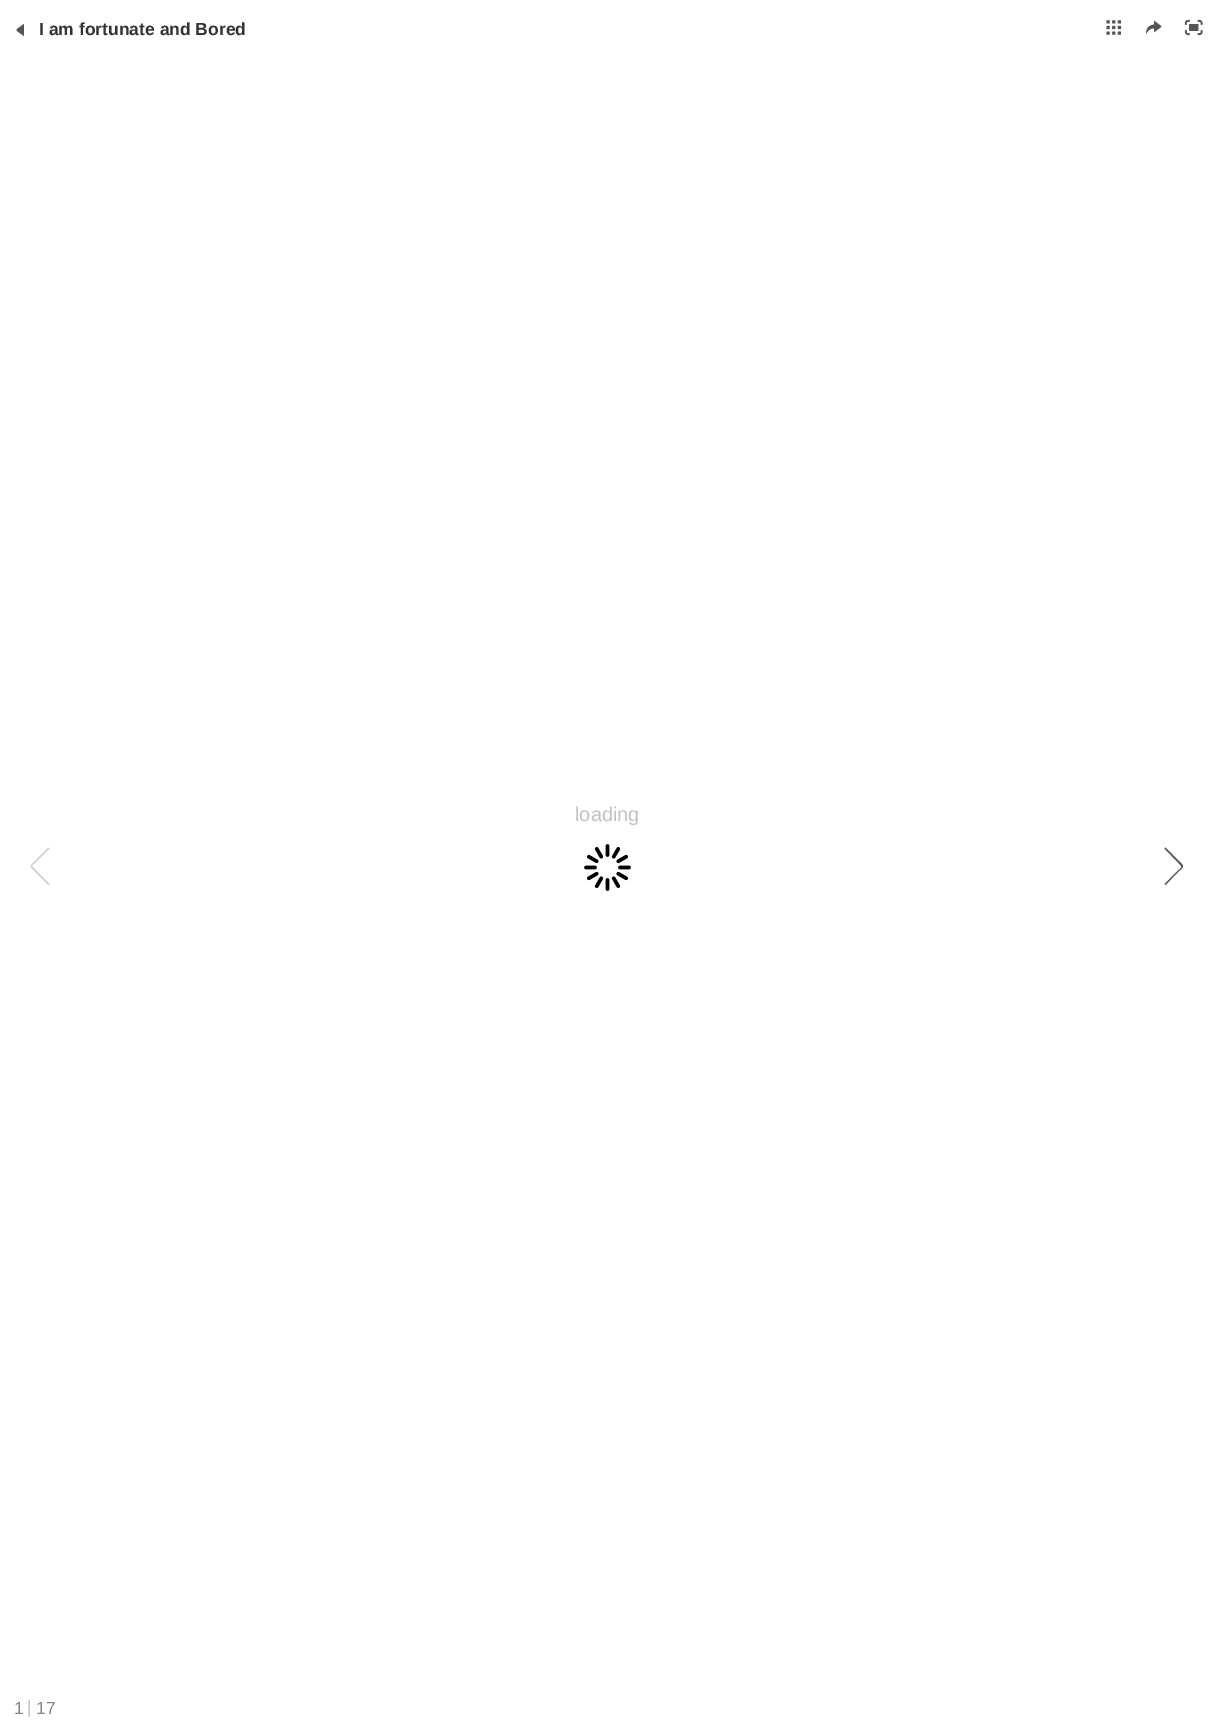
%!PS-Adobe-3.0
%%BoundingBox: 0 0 1213 1733
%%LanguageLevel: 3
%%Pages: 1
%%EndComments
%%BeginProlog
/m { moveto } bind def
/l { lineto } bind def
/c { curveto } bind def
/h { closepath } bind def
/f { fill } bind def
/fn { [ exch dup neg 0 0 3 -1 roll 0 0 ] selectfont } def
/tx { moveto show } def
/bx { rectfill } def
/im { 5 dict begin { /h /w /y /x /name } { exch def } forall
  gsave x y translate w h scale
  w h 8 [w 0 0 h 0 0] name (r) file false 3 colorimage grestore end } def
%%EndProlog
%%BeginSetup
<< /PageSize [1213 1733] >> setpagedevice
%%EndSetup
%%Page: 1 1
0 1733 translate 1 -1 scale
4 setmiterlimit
1 setgray
0 0 1213 1733 bx
0.333 setgray
24 36 m 14 28.5 14 31.5 24 24 c h f
/LiberationSans-Bold 17.5 fn
0.2 setgray
(I am fortunate and Bored) 39 35 tx
(image0.raw) 1106 20 16 15 im
(image1.raw) 1146 20 16 15 im
(image2.raw) 1184 19 19 17 im
/LiberationSans-Regular 20 fn
0.761 setgray
(loading) 575 821 tx
0.8 setgray
48.5 885 m 31.5 868 l 29.5 865.5 33 863 34.5 861.5 c 48.5 847.5 l 49.5 848.5 l 38.5 859.5 l 32 866 30 864.5 35.5 870 c 49.5 884 l h f
0.333 setgray
1165.5 847.5 m 1182.5 864.5 l 1184 867.5 1181 869.5 1179 871 c 1165.5 885 l 1164.5 884 l 1175.5 873 l 1182 866.5 1183.5 868 1178 862.5 c 1164.5 848.5 l h f
/LiberationSans-Regular 17.5 fn
0.522 setgray
(1) 14 1714 tx
0.761 setgray
(|) 27 1713 tx
0.522 setgray
(17) 36 1714 tx
(image3.raw) 584 844 47 47 im
showpage
%%EOF
